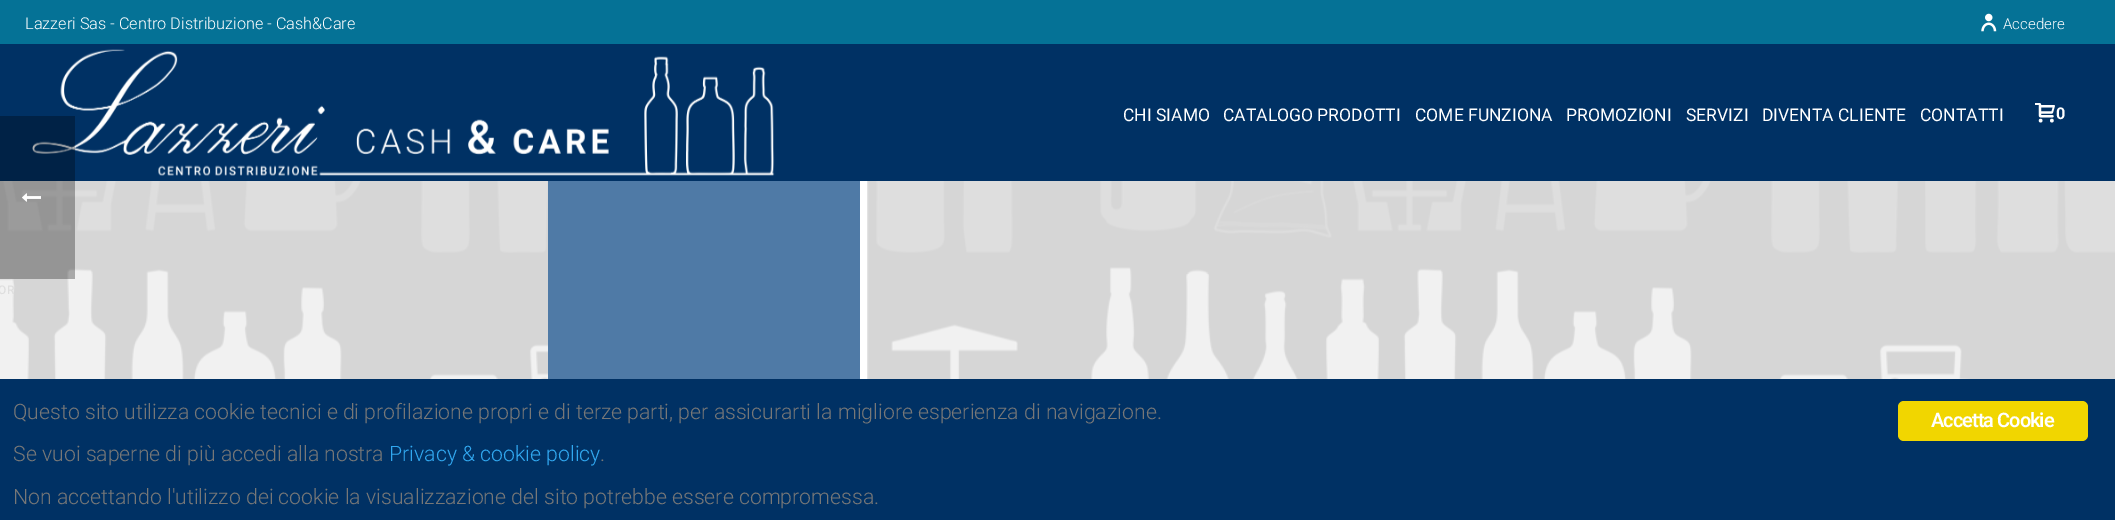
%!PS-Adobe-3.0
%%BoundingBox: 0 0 2115 520
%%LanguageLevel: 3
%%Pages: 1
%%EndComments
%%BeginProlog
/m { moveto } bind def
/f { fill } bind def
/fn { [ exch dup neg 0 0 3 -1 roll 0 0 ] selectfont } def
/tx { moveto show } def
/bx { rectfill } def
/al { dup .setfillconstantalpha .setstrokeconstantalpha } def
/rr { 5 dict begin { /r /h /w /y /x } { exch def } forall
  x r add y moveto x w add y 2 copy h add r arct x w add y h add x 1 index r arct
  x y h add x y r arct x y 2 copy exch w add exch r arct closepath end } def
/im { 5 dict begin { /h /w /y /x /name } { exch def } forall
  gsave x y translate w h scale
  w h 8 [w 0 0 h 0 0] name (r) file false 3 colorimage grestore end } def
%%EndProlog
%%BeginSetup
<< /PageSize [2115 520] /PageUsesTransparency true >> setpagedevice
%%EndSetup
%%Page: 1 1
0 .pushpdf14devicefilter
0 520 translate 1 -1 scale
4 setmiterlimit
0.839 setgray
0 0 2115 520 bx
0.02 0.447 0.588 setrgbcolor
0 0 2115 44 bx
/Roboto-Light 16.25 fn
1 setgray
(Lazzeri Sas - Centro Distribuzione - Cash&Care) 25 29 tx
(image0.raw) 1981 13 16 19 im
/Roboto-Light 15 fn
(Accedere) 2003 29 tx
(image3.raw) 0 181 2115 198 im
860 181 7 198 bx
0.89 setgray
548.5 61.5 319 443 rectstroke
0 0.192 0.392 setrgbcolor
0 44 2115 137 bx
(image1.raw) 32 49 743 127 im
/Roboto-Regular 17.5 fn
1 setgray
(CHI SIAMO) 1123 121 tx
(CATALOGO PRODOTTI) 1223 121 tx
(COME FUNZIONA) 1415 121 tx
(PROMOZIONI) 1566 121 tx
(SERVIZI) 1686 121 tx
(DIVENTA CLIENTE) 1762 121 tx
(CONTATTI) 1920 121 tx
(image2.raw) 2035 103 20 20 im
/Roboto-Bold 16.25 fn
(0) 2056 119 tx
0.31 0.478 0.651 setrgbcolor
548 181 312 198 bx
0.3 al
0 setgray
0 116 75 163 bx
1 al
(image4.raw) 22 193 19 9 im
/Roboto-Medium 12 fn
0.871 setgray
-2 294 m 1 0 (OR) ashow
0 0.192 0.392 setrgbcolor
0 379 2115 141 bx
/Roboto-Light 21.25 fn
0.467 setgray
(Questo sito utilizza cookie tecnici e di profilazione propri e di terze parti, per assicurarti la migliore esperienza di navigazione.) 13 419 tx
(Se vuoi saperne di più accedi alla nostra) 13 461 tx
0.192 0.659 0.941 setrgbcolor
(Privacy & cookie policy) 389 461 tx
0.467 setgray
(.) 600 461 tx
(Non accettando l'utilizzo dei cookie la visualizzazione del sito potrebbe essere compromessa.) 13 504 tx
0.945 0.839 0 setrgbcolor
1898 401 190 40 6 rr f
/Roboto-SemiBold 20 fn
1 setgray
1931 427 m -1 0 (Accetta Cookie) ashow
.poppdf14devicefilter showpage
%%EOF
